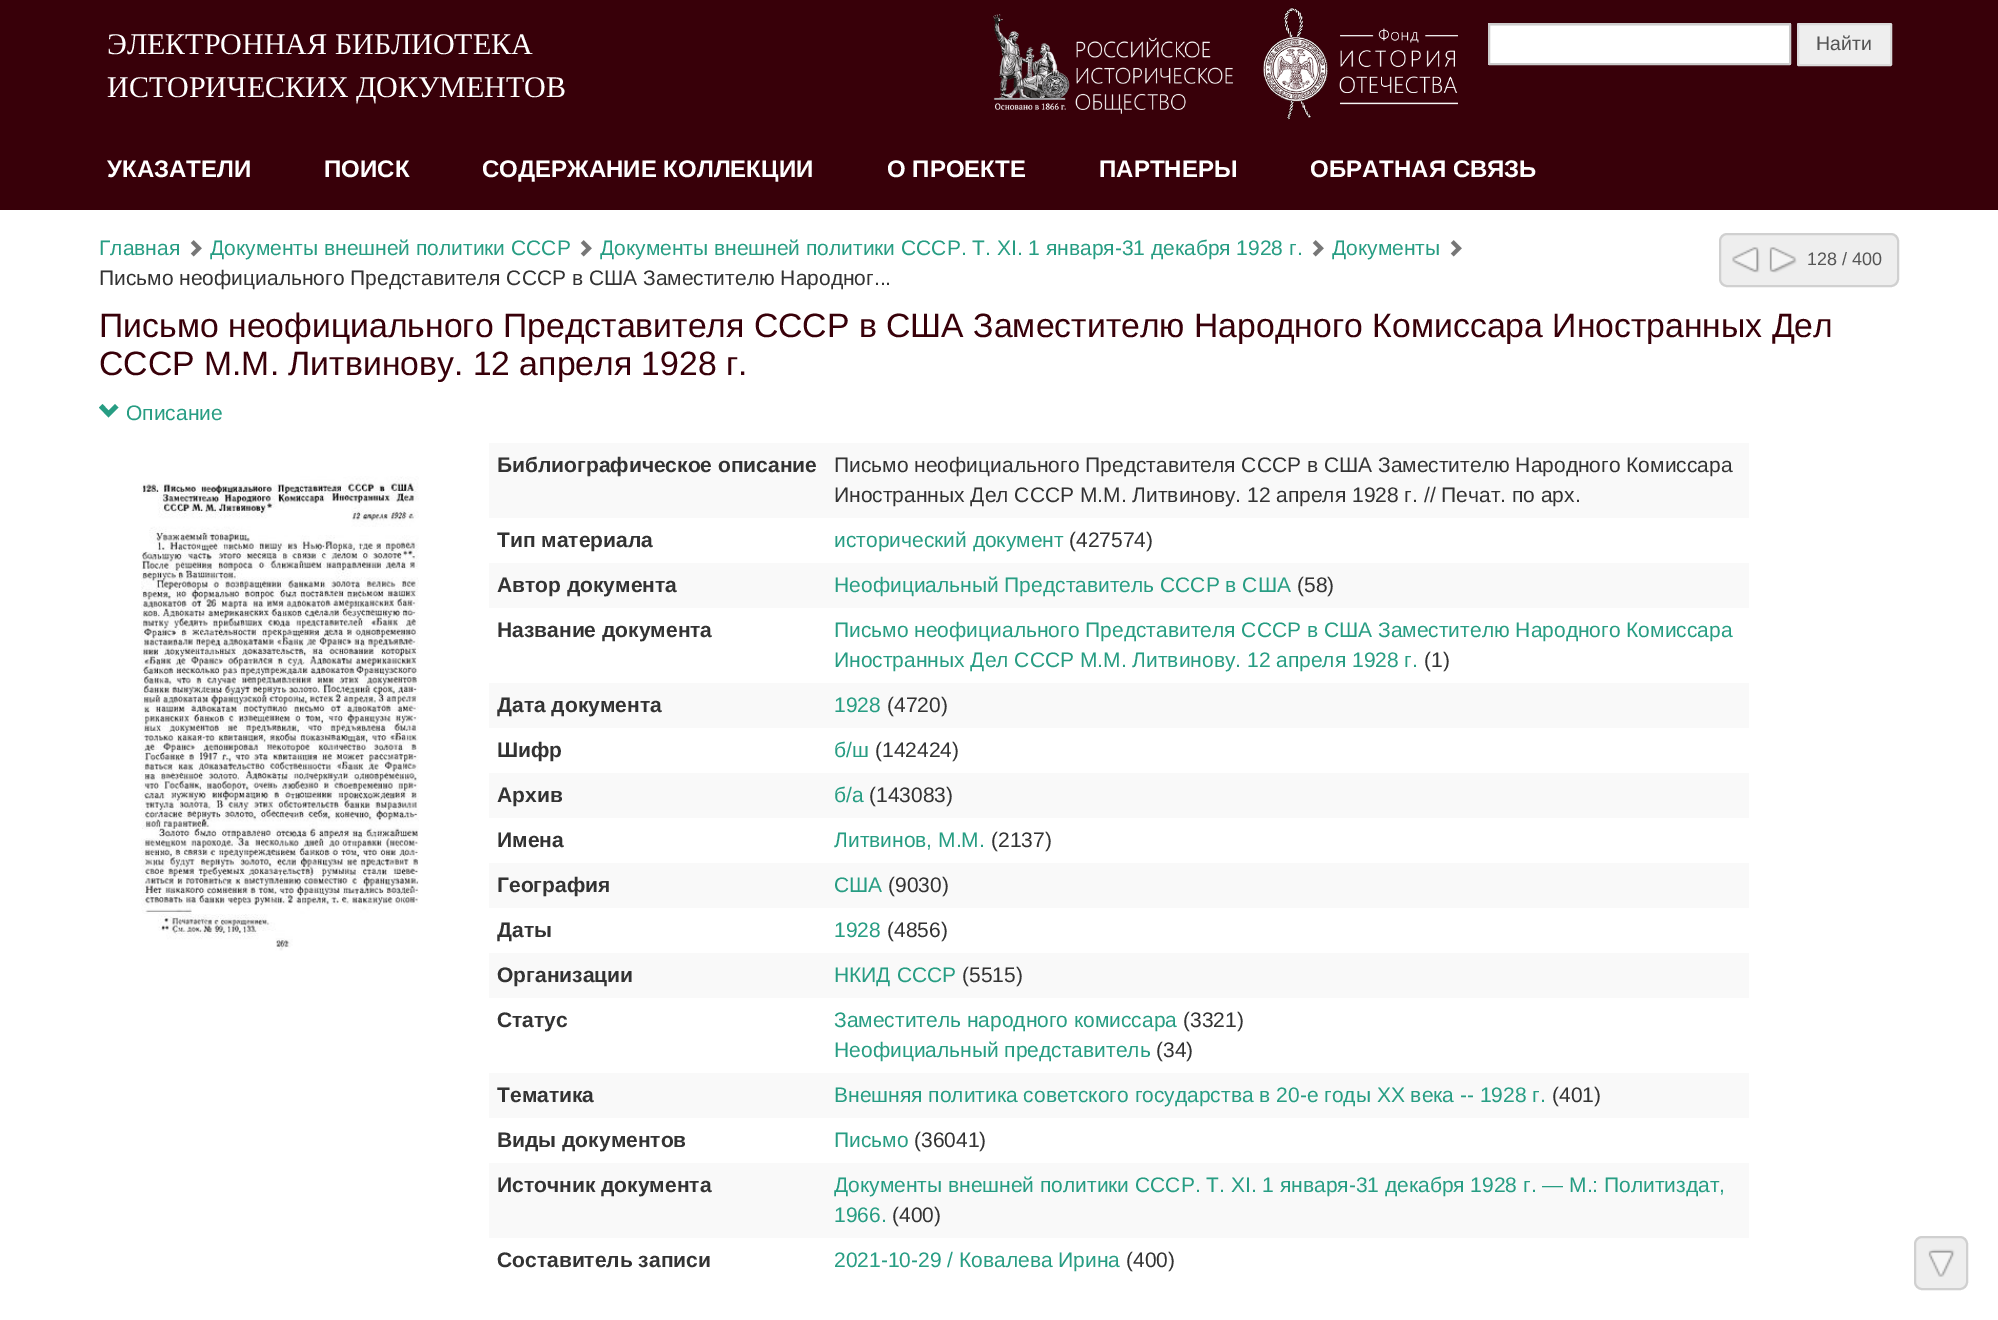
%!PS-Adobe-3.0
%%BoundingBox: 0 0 1998 1320
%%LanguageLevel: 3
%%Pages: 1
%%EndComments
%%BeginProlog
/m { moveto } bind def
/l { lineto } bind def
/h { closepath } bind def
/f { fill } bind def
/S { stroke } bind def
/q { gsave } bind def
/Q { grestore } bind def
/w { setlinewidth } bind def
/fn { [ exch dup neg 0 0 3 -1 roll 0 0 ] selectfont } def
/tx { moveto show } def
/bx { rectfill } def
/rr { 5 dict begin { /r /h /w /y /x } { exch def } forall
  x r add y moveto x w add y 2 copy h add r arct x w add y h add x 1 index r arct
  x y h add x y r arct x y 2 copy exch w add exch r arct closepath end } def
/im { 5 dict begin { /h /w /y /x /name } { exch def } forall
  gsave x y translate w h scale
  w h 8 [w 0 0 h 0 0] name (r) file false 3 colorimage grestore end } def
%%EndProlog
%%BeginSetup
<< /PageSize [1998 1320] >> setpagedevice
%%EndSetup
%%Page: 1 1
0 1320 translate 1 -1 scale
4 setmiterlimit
1 setgray
0 0 1998 1320 bx
0.22 0 0.035 setrgbcolor
0 0 1998 210 bx
/LiberationSerif-Regular 30 fn
1 setgray
(ЭЛЕКТРОННАЯ БИБЛИОТЕКА) 107 54 tx
(ИСТОРИЧЕСКИХ ДОКУМЕНТОВ) 107 97 tx
(image0.raw) 993 14 240 100 im
(image1.raw) 1263 7 195 113 im
1488 23 303 42 1.5 rr f
0.925 setgray
1490 25 300 1 bx
0.8 setgray
2 w
1489 24 301 40 0.5 rr S
0.933 setgray
1798 24 93 41 0.5 rr q f Q
0.855 setgray
S
/LiberationSans-Regular 19.5 fn
0.333 setgray
(Найти) 1816 50 tx
/LiberationSans-Bold 24 fn
1 setgray
(УКАЗАТЕЛИ) 107 177 tx
(ПОИСК) 324 177 tx
(СОДЕРЖАНИЕ КОЛЛЕКЦИИ) 482 177 tx
(О ПРОЕКТЕ) 887 177 tx
(ПАРТНЕРЫ) 1099 177 tx
(ОБРАТНАЯ СВЯЗЬ) 1310 177 tx
/LiberationSans-Regular 21 fn
0.153 0.616 0.514 setrgbcolor
(Главная) 99 255 tx
(image2.raw) 190 240 12 17 im
(Документы внешней политики СССР) 210 255 tx
(image2.raw) 580 240 12 17 im
(Документы внешней политики СССР. Т. XI. 1 января-31 декабря 1928 г.) 600 255 tx
(image2.raw) 1312 240 12 17 im
(Документы) 1332 255 tx
(image2.raw) 1450 240 12 17 im
0.2 setgray
(Письмо неофициального Представителя СССР в США Заместителю Народног...) 99 285 tx
0.933 setgray
1720 234 178 52 7 rr q f Q
0.816 setgray
S
(image3.raw) 1732 247 28 26 im
(image4.raw) 1769 247 28 26 im
/LiberationSans-Regular 18 fn
0.333 setgray
(128 / 400) 1807 265 tx
/LiberationSans-Regular 33.75 fn
0.22 0 0.035 setrgbcolor
(Письмо неофициального Представителя СССР в США Заместителю Народного Комиссара Иностранных Дел) 99 337 tx
(СССР М.М. Литвинову. 12 апреля 1928 г.) 99 375 tx
0.153 0.616 0.514 setrgbcolor
118.5 407.5 m 108.5 417.5 l 99 407.5 l 102.5 404 l 108.5 410.5 l 115 404 l h f
/LiberationSans-Regular 21 fn
(Описание) 126 420 tx
(image5.raw) 141 476 278 475 im
0.976 setgray
489 443 1260 75 bx
/LiberationSans-Bold 21 fn
0.2 setgray
(Библиографическое описание) 497 472 tx
/LiberationSans-Regular 21 fn
(Письмо неофициального Представителя СССР в США Заместителю Народного Комиссара) 834 472 tx
(Иностранных Дел СССР М.М. Литвинову. 12 апреля 1928 г. // Печат. по арх.) 834 502 tx
/LiberationSans-Bold 21 fn
(Тип материала) 497 547 tx
/LiberationSans-Regular 21 fn
0.153 0.616 0.514 setrgbcolor
(исторический документ) 834 547 tx
0.2 setgray
(\(427574\)) 1069 547 tx
0.976 setgray
489 563 1260 45 bx
/LiberationSans-Bold 21 fn
0.2 setgray
(Автор документа) 497 592 tx
/LiberationSans-Regular 21 fn
0.153 0.616 0.514 setrgbcolor
(Неофициальный Представитель СССР в США) 834 592 tx
0.2 setgray
(\(58\)) 1297 592 tx
/LiberationSans-Bold 21 fn
(Название документа) 497 637 tx
/LiberationSans-Regular 21 fn
0.153 0.616 0.514 setrgbcolor
(Письмо неофициального Представителя СССР в США Заместителю Народного Комиссара) 834 637 tx
(Иностранных Дел СССР М.М. Литвинову. 12 апреля 1928 г.) 834 667 tx
0.2 setgray
(\(1\)) 1424 667 tx
0.976 setgray
489 683 1260 45 bx
/LiberationSans-Bold 21 fn
0.2 setgray
(Дата документа) 497 712 tx
/LiberationSans-Regular 21 fn
0.153 0.616 0.514 setrgbcolor
(1928) 834 712 tx
0.2 setgray
(\(4720\)) 887 712 tx
/LiberationSans-Bold 21 fn
(Шифр) 497 757 tx
/LiberationSans-Regular 21 fn
0.153 0.616 0.514 setrgbcolor
(б/ш) 834 757 tx
0.2 setgray
(\(142424\)) 875 757 tx
0.976 setgray
489 773 1260 45 bx
/LiberationSans-Bold 21 fn
0.2 setgray
(Архив) 497 802 tx
/LiberationSans-Regular 21 fn
0.153 0.616 0.514 setrgbcolor
(б/а) 834 802 tx
0.2 setgray
(\(143083\)) 869 802 tx
/LiberationSans-Bold 21 fn
(Имена) 497 847 tx
/LiberationSans-Regular 21 fn
0.153 0.616 0.514 setrgbcolor
(Литвинов, М.М.) 834 847 tx
0.2 setgray
(\(2137\)) 991 847 tx
0.976 setgray
489 863 1260 45 bx
/LiberationSans-Bold 21 fn
0.2 setgray
(География) 497 892 tx
/LiberationSans-Regular 21 fn
0.153 0.616 0.514 setrgbcolor
(США) 834 892 tx
0.2 setgray
(\(9030\)) 888 892 tx
/LiberationSans-Bold 21 fn
(Даты) 497 937 tx
/LiberationSans-Regular 21 fn
0.153 0.616 0.514 setrgbcolor
(1928) 834 937 tx
0.2 setgray
(\(4856\)) 887 937 tx
0.976 setgray
489 953 1260 45 bx
/LiberationSans-Bold 21 fn
0.2 setgray
(Организации) 497 982 tx
/LiberationSans-Regular 21 fn
0.153 0.616 0.514 setrgbcolor
(НКИД СССР) 834 982 tx
0.2 setgray
(\(5515\)) 962 982 tx
/LiberationSans-Bold 21 fn
(Статус) 497 1027 tx
/LiberationSans-Regular 21 fn
0.153 0.616 0.514 setrgbcolor
(Заместитель народного комиссара) 834 1027 tx
0.2 setgray
(\(3321\)) 1183 1027 tx
0.153 0.616 0.514 setrgbcolor
(Неофициальный представитель) 834 1057 tx
0.2 setgray
(\(34\)) 1156 1057 tx
0.976 setgray
489 1073 1260 45 bx
/LiberationSans-Bold 21 fn
0.2 setgray
(Тематика) 497 1102 tx
/LiberationSans-Regular 21 fn
0.153 0.616 0.514 setrgbcolor
(Внешняя политика советского государства в 20-е годы XX века -- 1928 г.) 834 1102 tx
0.2 setgray
(\(401\)) 1552 1102 tx
/LiberationSans-Bold 21 fn
(Виды документов) 497 1147 tx
/LiberationSans-Regular 21 fn
0.153 0.616 0.514 setrgbcolor
(Письмо) 834 1147 tx
0.2 setgray
(\(36041\)) 914 1147 tx
0.976 setgray
489 1163 1260 75 bx
/LiberationSans-Bold 21 fn
0.2 setgray
(Источник документа) 497 1192 tx
/LiberationSans-Regular 21 fn
0.153 0.616 0.514 setrgbcolor
(Документы внешней политики СССР. Т. XI. 1 января-31 декабря 1928 г. — М.: Политиздат,) 834 1192 tx
(1966.) 834 1222 tx
0.2 setgray
(\(400\)) 892 1222 tx
/LiberationSans-Bold 21 fn
(Составитель записи) 497 1267 tx
/LiberationSans-Regular 21 fn
0.153 0.616 0.514 setrgbcolor
(2021-10-29 / Ковалева Ирина) 834 1267 tx
0.2 setgray
(\(400\)) 1126 1267 tx
0.933 setgray
1915 1237 52 52 7 rr q f Q
0.816 setgray
S
(image6.raw) 1928 1249 27 28 im
showpage
%%EOF
